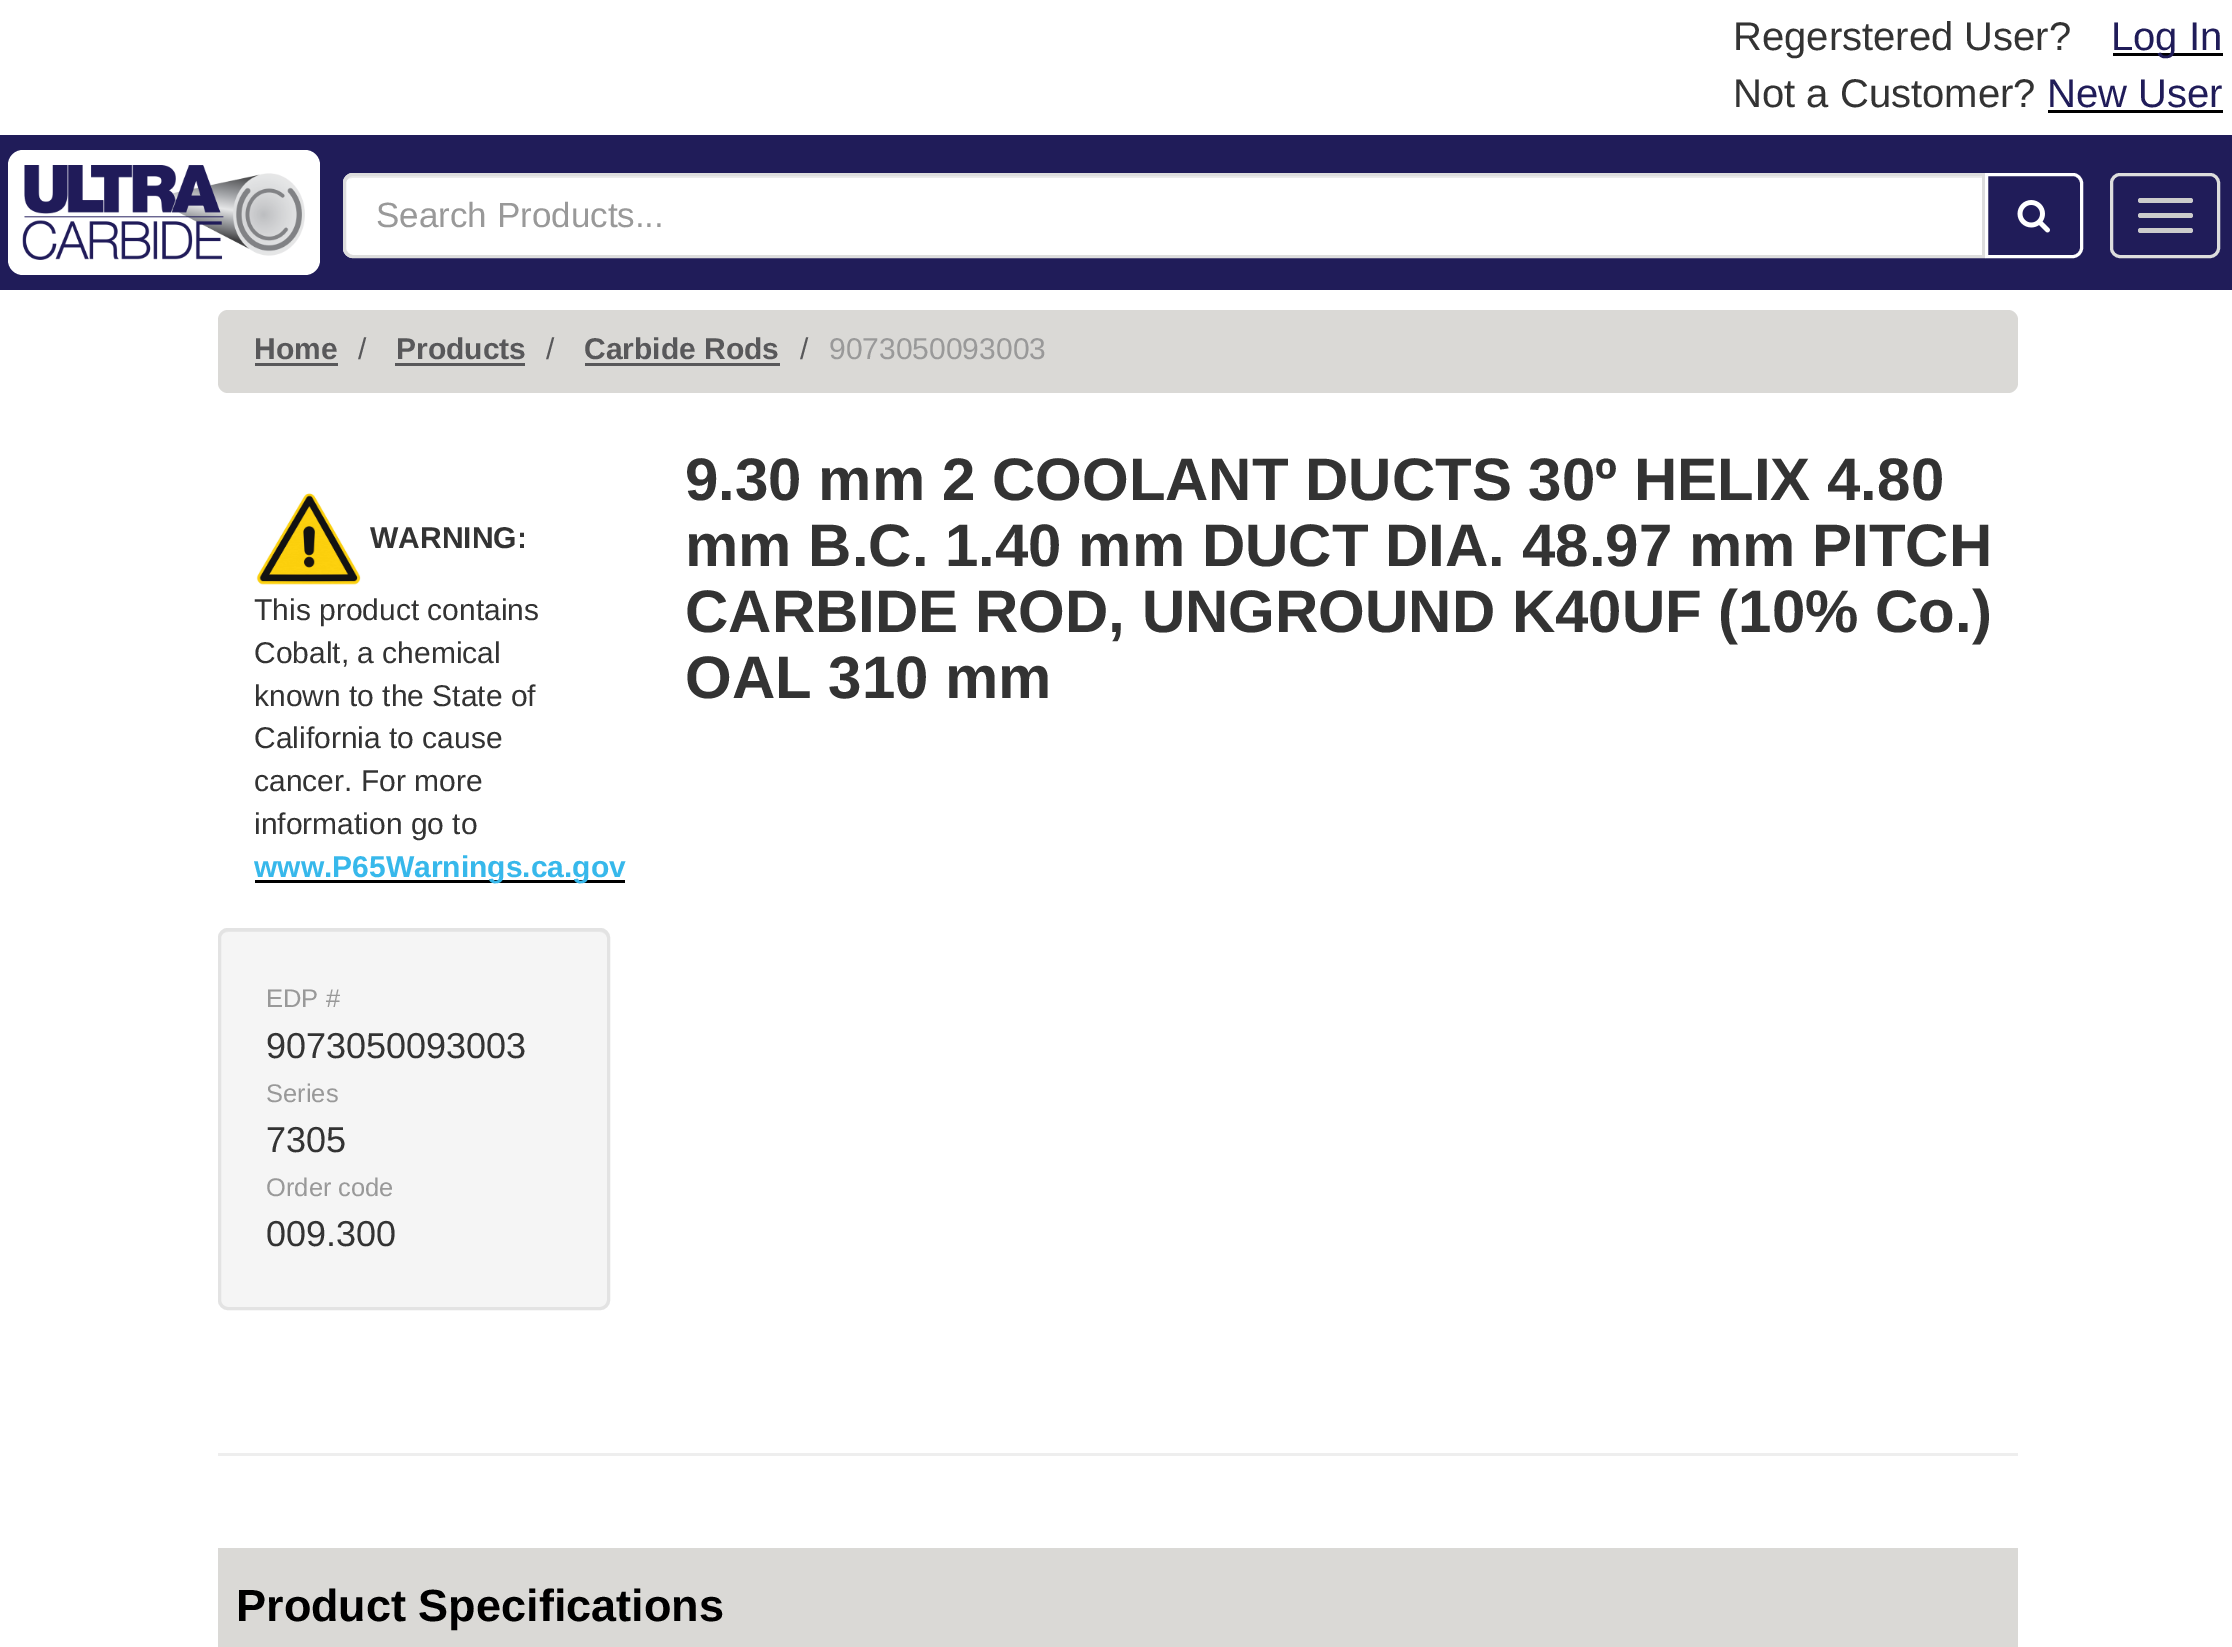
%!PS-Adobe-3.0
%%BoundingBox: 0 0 2232 1647
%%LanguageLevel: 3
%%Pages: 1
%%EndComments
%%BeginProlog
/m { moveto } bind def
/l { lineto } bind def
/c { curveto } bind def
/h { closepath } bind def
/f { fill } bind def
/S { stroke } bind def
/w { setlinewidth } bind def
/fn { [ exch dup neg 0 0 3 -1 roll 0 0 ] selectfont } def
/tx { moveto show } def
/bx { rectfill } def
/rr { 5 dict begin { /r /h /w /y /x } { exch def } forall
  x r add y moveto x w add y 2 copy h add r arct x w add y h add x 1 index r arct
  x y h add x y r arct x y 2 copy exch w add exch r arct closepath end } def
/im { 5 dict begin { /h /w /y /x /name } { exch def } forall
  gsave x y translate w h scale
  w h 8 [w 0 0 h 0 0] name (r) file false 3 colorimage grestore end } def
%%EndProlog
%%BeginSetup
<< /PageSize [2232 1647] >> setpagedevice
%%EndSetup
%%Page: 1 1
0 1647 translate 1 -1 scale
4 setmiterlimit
1 setgray
0 0 2232 1647 bx
/LiberationSans-Regular 40 fn
0.2 setgray
(Regerstered User?) 1733 50 tx
0 setgray
2113 53 110 3 bx
0.125 0.11 0.349 setrgbcolor
(Log In) 2111 50 tx
0.2 setgray
(Not a Customer?) 1733 107 tx
0.125 0.11 0.349 setrgbcolor
(New User) 2047 107 tx
0 setgray
2048 110 175 3 bx
0.125 0.11 0.349 setrgbcolor
0 135 2232 155 bx
1 setgray
8 150 312 125 15 rr f
(image0.raw) 22 165 283 95 im
353 173 m 1985 173 l 1985 258 l 353 258 l 347.5 258 343 253.5 343 248 c 343 183 l 343 177.5 347.5 173 353 173 c h f
0.925 setgray
352 178 m 1982 178 l 1982 255 l 1983 255 l 1983 175 l 353 175 l 347 175 345 180 345 185 c 345 181 348 178 352 178 c h f
0.867 setgray
3 w
353 174.5 m 1983.5 174.5 l 1983.5 256.5 l 353 256.5 l 348.5 256.5 344.5 252.5 344.5 248 c 344.5 183 l 344.5 178.5 348.5 174.5 353 174.5 c h S
/LiberationSans-Regular 35 fn
0.6 setgray
(Search Products...) 376 227 tx
1 setgray
1986.5 174.5 m 2073 174.5 l 2077.5 174.5 2081.5 178.5 2081.5 183 c 2081.5 248 l 2081.5 252.5 2077.5 256.5 2073 256.5 c 1986.5 256.5 l h S
(image1.raw) 2017 200 33 33 im
0.867 setgray
2111.5 174.5 107 82 8.5 rr S
0.8 setgray
2138 198 55 5 2.5 rr f
2138 213 55 5 2.5 rr f
2138 228 55 5 2.5 rr f
0.855 0.851 0.839 setrgbcolor
218 310 1800 83 10 rr f
/LiberationSans-Bold 30 fn
0.345 0.345 0.353 setrgbcolor
(Home) 254 359 tx
255 363 83 3 bx
/LiberationSans-Regular 30 fn
(/) 358 359 tx
/LiberationSans-Bold 30 fn
(Products) 396 359 tx
395 363 130 3 bx
/LiberationSans-Regular 30 fn
(/) 546 359 tx
/LiberationSans-Bold 30 fn
(Carbide Rods) 584 359 tx
585 363 195 3 bx
/LiberationSans-Regular 30 fn
(/) 800 359 tx
0.6 setgray
(9073050093003) 829 359 tx
(image2.raw) 256 493 105 92 im
/LiberationSans-Bold 30 fn
0.2 setgray
(WARNING:) 370 548 tx
/LiberationSans-Regular 30 fn
(This product contains) 254 620 tx
(Cobalt, a chemical) 254 663 tx
(known to the State of) 254 706 tx
(California to cause) 254 748 tx
(cancer. For more) 254 791 tx
(information go to) 254 834 tx
0 setgray
255 880 370 3 bx
/LiberationSans-Bold 30 fn
0.216 0.722 0.922 setrgbcolor
(www.P65Warnings.ca.gov) 254 877 tx
0.961 setgray
218 928 392 382 10 rr f
0.914 setgray
228 932 m 600 932 l 604 932 608 936 608 940 c 608 938 l 608 934 604 930 600 930 c 228 930 l 224 930 220 934 220 938 c 220 940 l 220 936 223 932 228 932 c h f
0.89 setgray
219.5 929.5 389 379 8.5 rr S
/LiberationSans-Regular 25.5 fn
0.6 setgray
(EDP #) 266 1007 tx
/LiberationSans-Regular 36 fn
0.2 setgray
(9073050093003) 266 1058 tx
/LiberationSans-Regular 25.5 fn
0.6 setgray
(Series) 266 1102 tx
/LiberationSans-Regular 36 fn
0.2 setgray
(7305) 266 1152 tx
/LiberationSans-Regular 25.5 fn
0.6 setgray
(Order code) 266 1196 tx
/LiberationSans-Regular 36 fn
0.2 setgray
(009.300) 266 1246 tx
/LiberationSans-Bold 60 fn
(9.30 mm 2 COOLANT DUCTS 30º HELIX 4.80) 685 500 tx
(mm B.C. 1.40 mm DUCT DIA. 48.97 mm PITCH) 685 566 tx
(CARBIDE ROD, UNGROUND K40UF \(10% Co.\)) 685 632 tx
(OAL 310 mm) 685 698 tx
0.933 setgray
218 1453 1800 3 bx
0.855 0.851 0.839 setrgbcolor
218 1548 1800 99 bx
/LiberationSans-Bold 45 fn
0 setgray
(Product Specifications) 236 1621 tx
showpage
%%EOF
